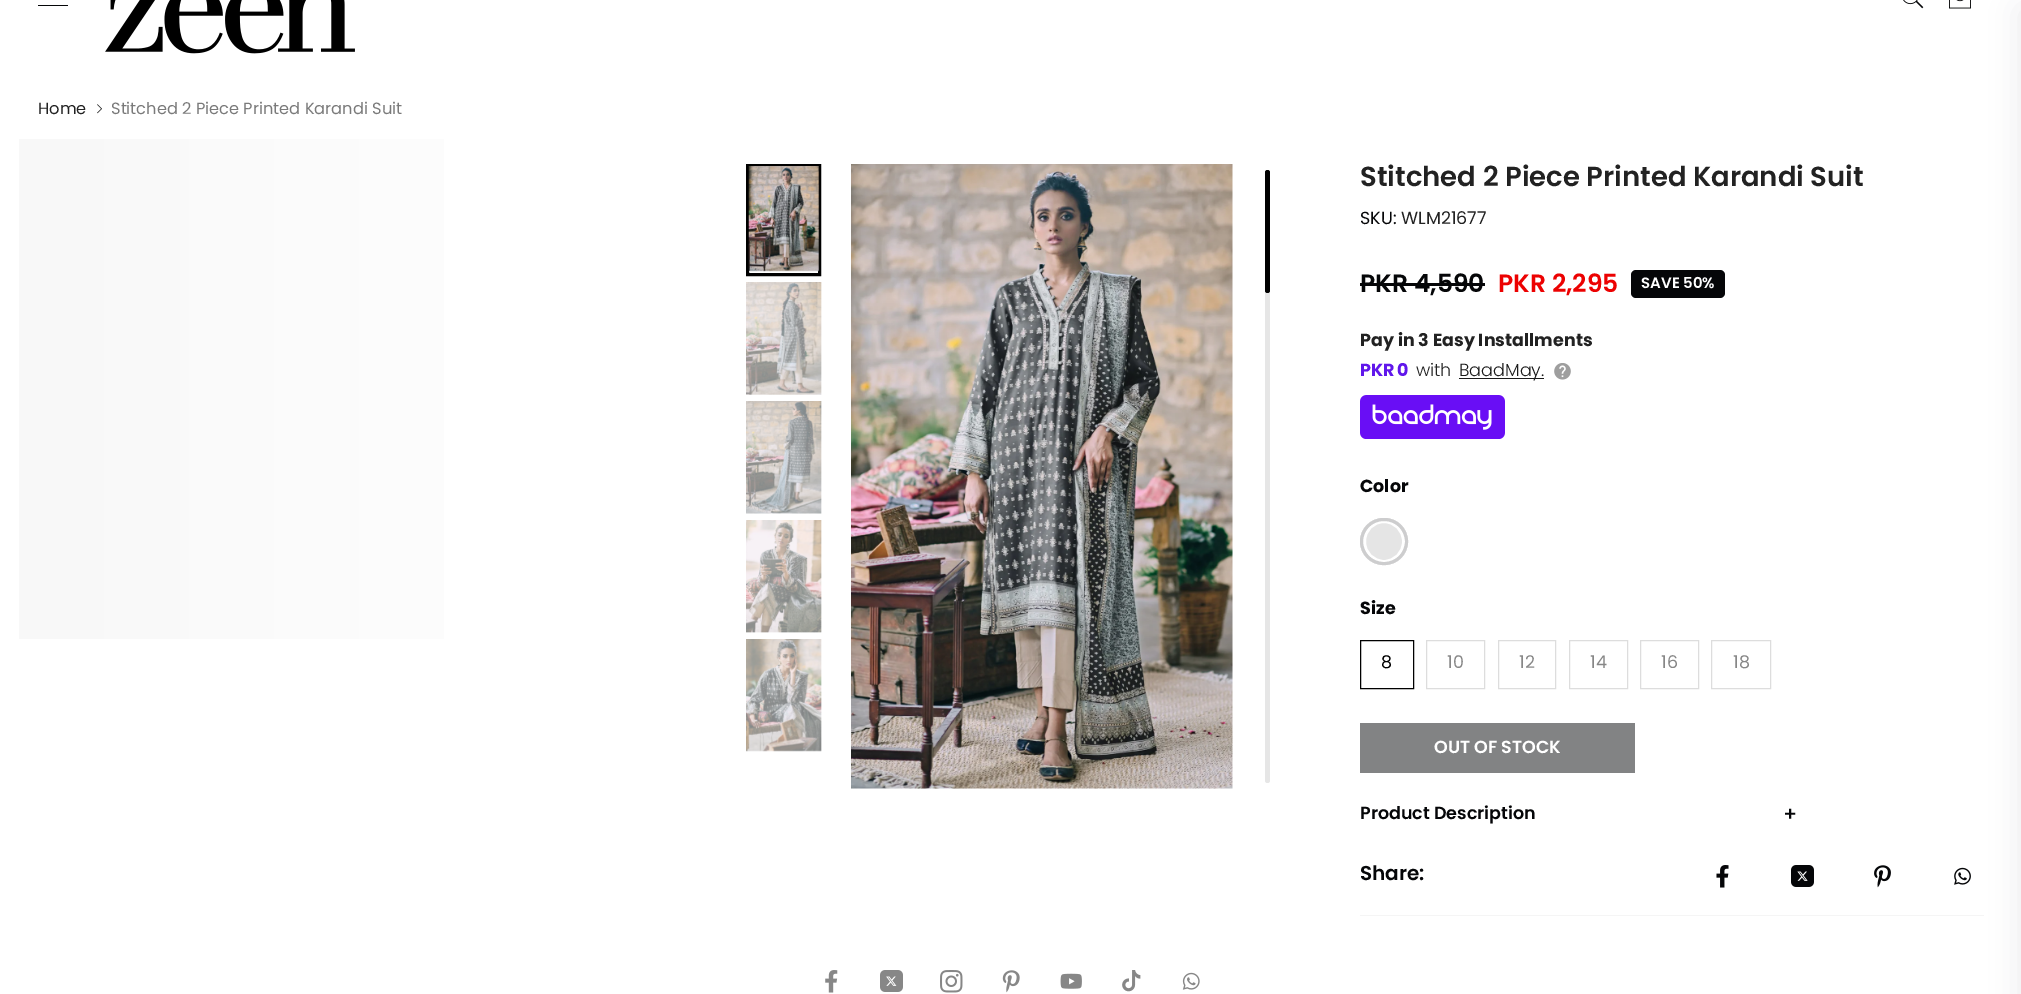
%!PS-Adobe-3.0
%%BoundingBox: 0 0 2021 994
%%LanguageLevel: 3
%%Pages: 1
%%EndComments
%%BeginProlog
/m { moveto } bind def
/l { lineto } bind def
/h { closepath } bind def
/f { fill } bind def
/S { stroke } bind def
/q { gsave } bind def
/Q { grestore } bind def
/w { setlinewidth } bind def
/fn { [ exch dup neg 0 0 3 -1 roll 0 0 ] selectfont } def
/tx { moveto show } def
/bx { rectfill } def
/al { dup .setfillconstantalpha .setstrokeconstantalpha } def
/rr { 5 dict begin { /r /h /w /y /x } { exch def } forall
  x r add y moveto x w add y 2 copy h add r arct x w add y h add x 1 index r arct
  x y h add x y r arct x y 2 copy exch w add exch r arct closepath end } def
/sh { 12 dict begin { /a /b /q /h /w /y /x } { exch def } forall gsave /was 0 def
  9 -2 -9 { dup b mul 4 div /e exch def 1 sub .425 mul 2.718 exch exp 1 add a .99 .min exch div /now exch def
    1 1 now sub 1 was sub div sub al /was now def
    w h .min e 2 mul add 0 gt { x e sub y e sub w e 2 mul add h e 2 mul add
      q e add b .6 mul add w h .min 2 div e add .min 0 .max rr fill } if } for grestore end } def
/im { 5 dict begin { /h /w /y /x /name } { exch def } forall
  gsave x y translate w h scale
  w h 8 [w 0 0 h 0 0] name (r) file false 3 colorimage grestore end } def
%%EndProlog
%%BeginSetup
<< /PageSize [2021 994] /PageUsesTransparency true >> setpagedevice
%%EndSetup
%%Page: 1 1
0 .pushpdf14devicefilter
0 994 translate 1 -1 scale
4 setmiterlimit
1 setgray
0 0 2021 994 bx
0.02 0.024 0.031 setrgbcolor
38 5 30 1 bx
(image0.raw) 105 0 250 54 im
(image1.raw) 1903 0 21 9 im
(image2.raw) 1949 0 22 9 im
/Poppins-Regular 16.25 fn
0.133 setgray
(Home) 38 114 tx
(image3.raw) 97 104 5 10 im
0.478 setgray
(Stitched 2 Piece Printed Karandi Suit) 111 114 tx
q 19 139 m 444 139 l 444 639 l 19 639 l h clip newpath
<< /ShadingType 2 /ColorSpace /DeviceRGB /Coords [680 389 19 389] /Extend [true true] /Function << /FunctionType 2 /Domain [0 1] /C0 [1 1 1] /C1 [0.973 0.973 0.973] /N 1 >> >> shfill Q
0 setgray
3 w
747.5 165.5 72 109 rectstroke
(image4.raw) 748 166 72 106 im
(image5.raw) 746 282 76 113 im
(image6.raw) 746 401 76 113 im
(image7.raw) 746 520 76 113 im
(image8.raw) 746 639 76 113 im
(image9.raw) 851 164 382 625 im
0.902 setgray
1265 170 5 613 2.5 rr f
0 setgray
1265 170 5 123 2.5 rr f
/Poppins-SemiBold 27.5 fn
0.133 setgray
(Stitched 2 Piece Printed Karandi Suit) 1360 186 tx
/Poppins-Regular 17.5 fn
0.02 0.024 0.031 setrgbcolor
(SKU:) 1360 224 tx
0.133 setgray
(WLM21677) 1401 224 tx
/Poppins-SemiBold 25 fn
0.02 0.024 0.031 setrgbcolor
(PKR 4,590) 1360 292 tx
1360 283 125 3 bx
0.925 0.004 0.004 setrgbcolor
(PKR 2,295) 1498 292 tx
0.02 0.024 0.031 setrgbcolor
1631 270 94 28 5 rr f
/Poppins-SemiBold 15 fn
1 setgray
(SAVE 50%) 1641 288 tx
/Poppins-Bold 17.5 fn
0.133 setgray
(Pay in 3 Easy Installments) 1360 346 tx
0.376 0.086 0.922 setrgbcolor
(PKR) 1360 376 tx
(0) 1397 376 tx
/Poppins-Light 17.5 fn
0.133 setgray
(with) 1416 376 tx
0.102 setgray
1459 378 85 1 bx
(BaadMay.) 1459 376 tx
(image10.raw) 1554 363 17 17 im
(image11.raw) 1360 395 145 44 im
/Poppins-Bold 17.5 fn
0.02 0.024 0.031 setrgbcolor
(Color) 1360 492 tx
0.898 setgray
1360 518 48 47 23.5 rr f
1 setgray
1364.5 521.5 39 40 19.5 rr S
0.804 0.804 0.808 setrgbcolor
1361.5 519.5 45 44 22 rr S
0.02 0.024 0.031 setrgbcolor
(Size) 1360 614 tx
0 setgray
1 w
1360.5 640.5 53 48 rectstroke
/Poppins-Regular 17.5 fn
(8) 1381 668 tx
0.867 setgray
1426.5 640.5 58 48 rectstroke
0.529 setgray
(10) 1447 668 tx
0.867 setgray
1498.5 640.5 57 48 rectstroke
0.529 setgray
(12) 1519 668 tx
0.867 setgray
1569.5 640.5 58 48 rectstroke
0.529 setgray
(14) 1590 668 tx
0.867 setgray
1640.5 640.5 58 48 rectstroke
0.529 setgray
(16) 1661 668 tx
0.867 setgray
1711.5 640.5 59 48 rectstroke
0.529 setgray
(18) 1733 668 tx
0.51 0.514 0.518 setrgbcolor
1360 723 275 50 bx
/Poppins-SemiBold 17.5 fn
1 setgray
(OUT OF STOCK) 1434 753 tx
0.02 0.024 0.031 setrgbcolor
(Product Description) 1360 819 tx
/Poppins-Medium 20 fn
(+) 1783 821 tx
0.961 setgray
1360 915 624 1 bx
/Poppins-SemiBold 20 fn
0.02 0.024 0.031 setrgbcolor
(Share:) 1360 880 tx
(image12.raw) 1716 865 13 23 im
(image13.raw) 1791 865 23 22 im
(image14.raw) 1874 865 17 23 im
(image15.raw) 1954 867 17 18 im
0.584 0.616 0.647 setrgbcolor
2021 10 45 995 0 15 0.2 sh
(image16.raw) 825 970 13 23 im
(image17.raw) 880 970 23 22 im
(image18.raw) 940 970 23 23 im
(image19.raw) 1002 970 18 23 im
(image20.raw) 1060 973 22 16 im
(image21.raw) 1122 970 19 22 im
(image22.raw) 1182 972 18 18 im
.poppdf14devicefilter showpage
%%EOF
